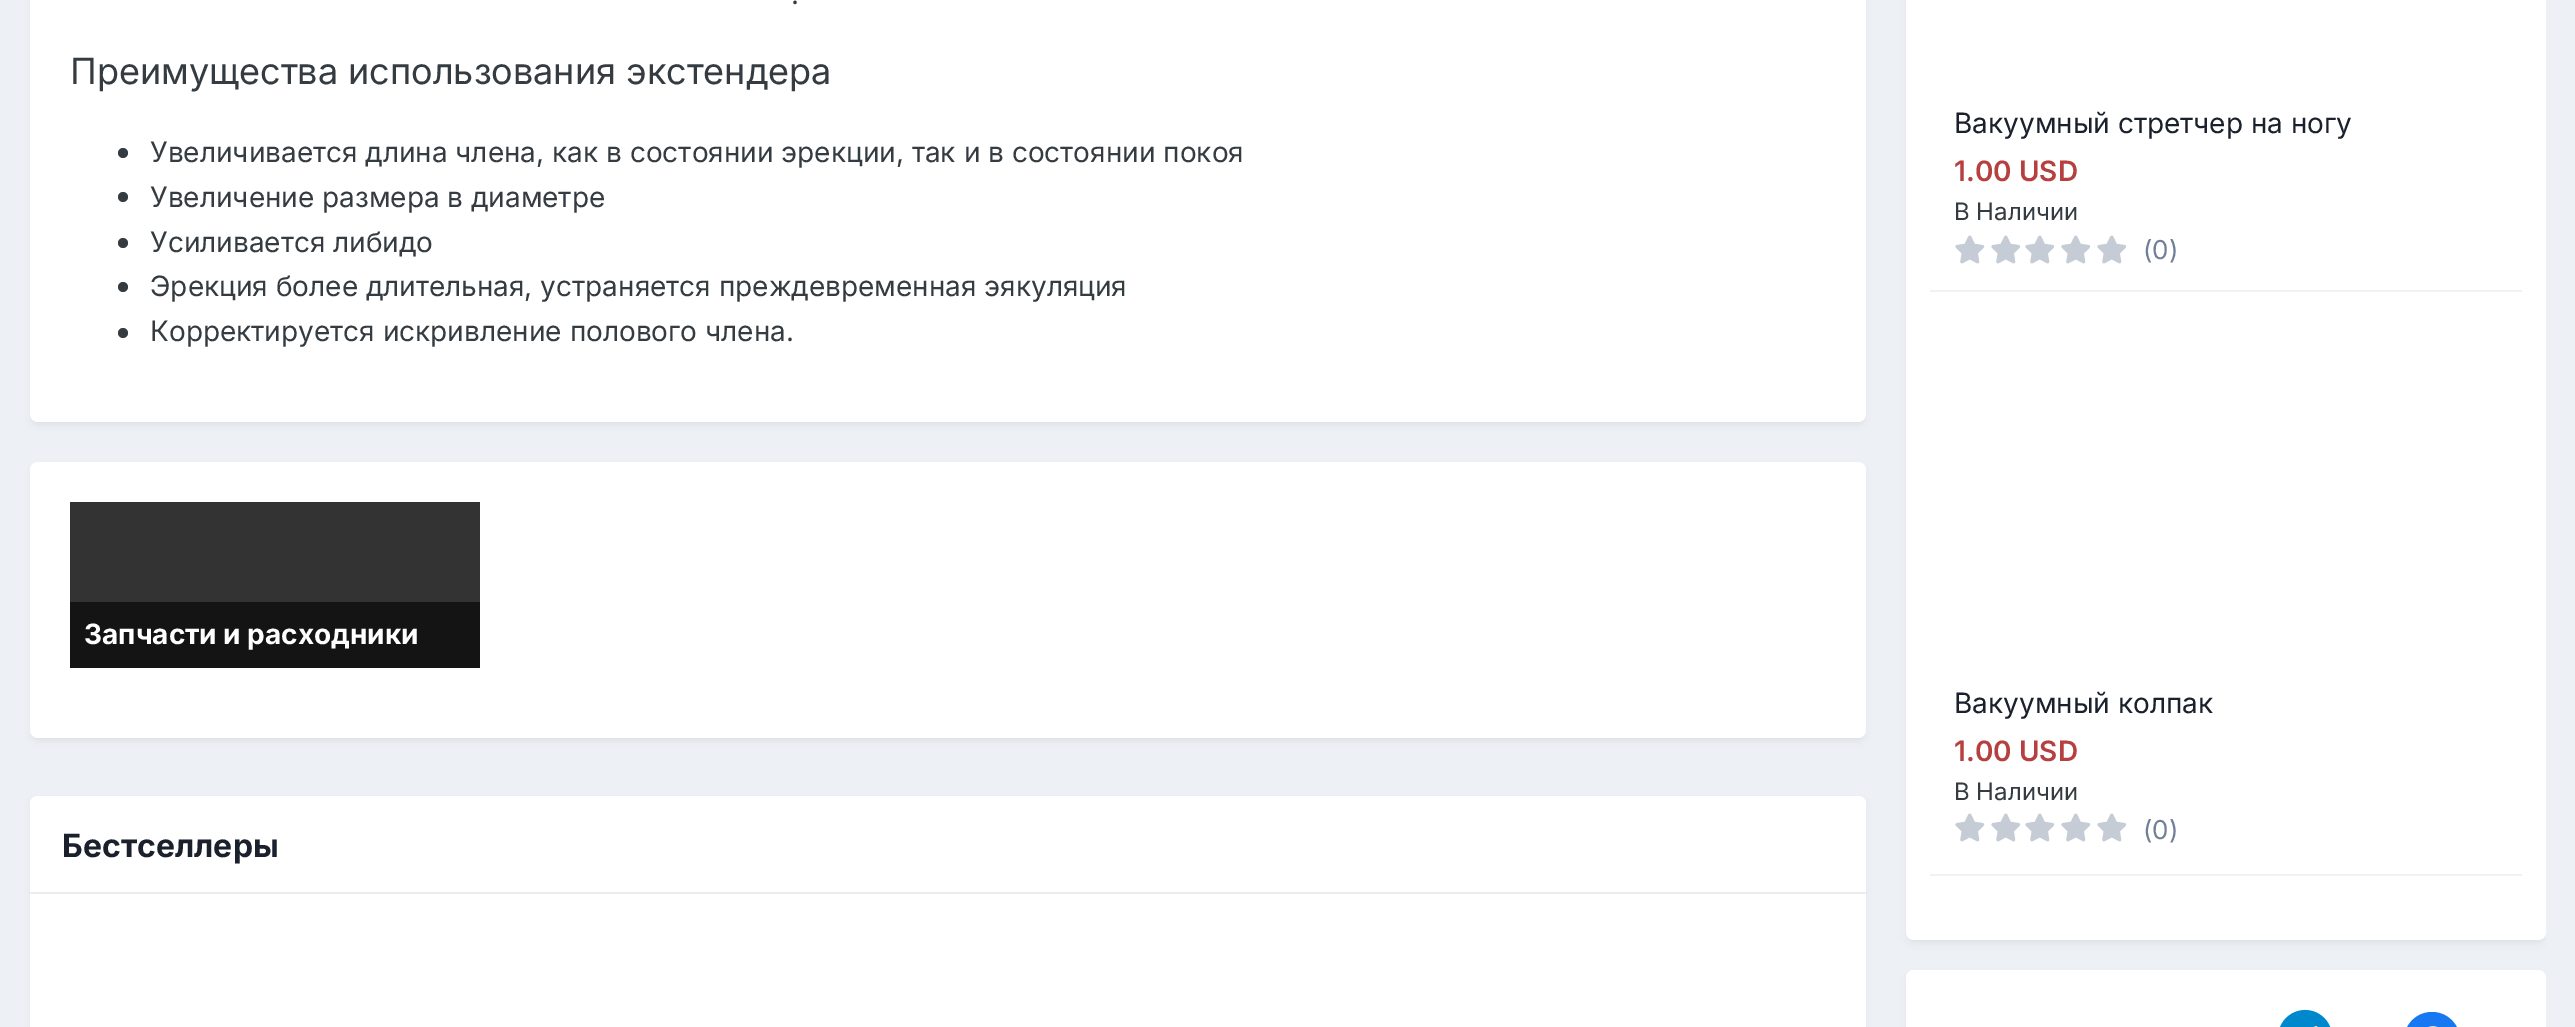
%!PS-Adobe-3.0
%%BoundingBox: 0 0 2575 1027
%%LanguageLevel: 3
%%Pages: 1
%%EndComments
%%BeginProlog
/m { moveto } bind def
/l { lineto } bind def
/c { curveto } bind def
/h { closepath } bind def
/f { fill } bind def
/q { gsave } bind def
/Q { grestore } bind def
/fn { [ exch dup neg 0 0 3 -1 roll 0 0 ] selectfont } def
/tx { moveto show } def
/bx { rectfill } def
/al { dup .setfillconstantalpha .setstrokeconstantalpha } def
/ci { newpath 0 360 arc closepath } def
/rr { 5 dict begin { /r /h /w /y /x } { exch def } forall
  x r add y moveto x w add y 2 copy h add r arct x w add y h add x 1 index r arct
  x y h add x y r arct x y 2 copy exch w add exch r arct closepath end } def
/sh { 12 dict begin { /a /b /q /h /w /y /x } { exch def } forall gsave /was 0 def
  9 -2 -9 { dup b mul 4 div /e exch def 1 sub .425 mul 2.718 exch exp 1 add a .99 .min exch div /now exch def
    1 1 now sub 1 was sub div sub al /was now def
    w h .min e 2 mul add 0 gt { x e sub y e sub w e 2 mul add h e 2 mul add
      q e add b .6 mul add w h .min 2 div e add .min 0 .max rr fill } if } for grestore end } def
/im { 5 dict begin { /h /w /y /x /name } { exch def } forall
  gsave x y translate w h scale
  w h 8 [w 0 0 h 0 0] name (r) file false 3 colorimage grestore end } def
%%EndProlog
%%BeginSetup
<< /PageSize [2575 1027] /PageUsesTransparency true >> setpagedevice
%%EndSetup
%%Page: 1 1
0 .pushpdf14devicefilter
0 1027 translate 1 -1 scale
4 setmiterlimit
0.929 0.941 0.957 setrgbcolor
0 0 2575 1027 bx
0.176 0.216 0.282 setrgbcolor
32 -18 1832 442 6 4 0.1 sh
1 setgray
30 -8 1836 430 8 rr f
/Inter-Regular 28 fn
0.208 0.235 0.255 setrgbcolor
(.) 791 4 tx
/Inter-Regular 36 fn
(Преимущества использования экстендера) 70 84 tx
123 153 5 ci f
/Inter-Regular 28 fn
(Увеличивается длина члена, как в состоянии эрекции, так и в состоянии покоя) 150 162 tx
123 197 5 ci f
(Увеличение размера в диаметре) 150 207 tx
123 243 5 ci f
(Усиливается либидо) 150 252 tx
123 287 5 ci f
(Эрекция более длительная, устраняется преждевременная эякуляция) 150 296 tx
123 333 5 ci f
(Корректируется искривление полового члена.) 150 341 tx
0.176 0.216 0.282 setrgbcolor
32 468 1832 272 6 4 0.1 sh
1 setgray
30 462 1836 276 8 rr f
0.2 setgray
70 502 410 100 bx
0.078 setgray
70 602 410 66 bx
/Inter-Bold 28 fn
1 setgray
(Запчасти и расходники) 84 644 tx
0.176 0.216 0.282 setrgbcolor
32 802 1832 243 6 4 0.1 sh
1 setgray
30 796 1836 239 8 rr f
38 796 m 1858 796 l 1862.5 796 1866 799.5 1866 804 c 1866 894 l 30 894 l 30 804 l 30 799.5 33.5 796 38 796 c h f
0.918 0.925 0.937 setrgbcolor
30 892 1836 2 bx
/Inter-Bold 32 fn
0.102 0.125 0.173 setrgbcolor
(Бестселлеры) 62 857 tx
q
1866 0 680 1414 rectclip
0.176 0.216 0.282 setrgbcolor
1908 -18 636 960 6 4 0.1 sh
Q
1 setgray
1906 -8 640 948 8 rr f
0.945 0.949 0.961 setrgbcolor
1930 290 592 2 bx
/Inter-Regular 28 fn
0.102 0.125 0.173 setrgbcolor
(Вакуумный стретчер на ногу) 1954 133 tx
/Inter-SemiBold 28 fn
0.714 0.247 0.247 setrgbcolor
(1.00 USD) 1954 181 tx
/Inter-Regular 24 fn
0.208 0.235 0.255 setrgbcolor
(В Наличии) 1954 220 tx
(image0.raw) 1955 235 30 29 im
(image0.raw) 1991 235 30 29 im
(image0.raw) 2025 235 30 29 im
(image0.raw) 2061 235 30 29 im
(image0.raw) 2097 235 30 29 im
/Inter-Regular 26 fn
0.443 0.502 0.588 setrgbcolor
(\(0\)) 2143 259 tx
0.945 0.949 0.961 setrgbcolor
1930 874 592 2 bx
/Inter-Regular 28 fn
0.102 0.125 0.173 setrgbcolor
(Вакуумный колпак) 1954 713 tx
/Inter-SemiBold 28 fn
0.714 0.247 0.247 setrgbcolor
(1.00 USD) 1954 761 tx
/Inter-Regular 24 fn
0.208 0.235 0.255 setrgbcolor
(В Наличии) 1954 800 tx
(image0.raw) 1955 813 30 29 im
(image0.raw) 1991 813 30 29 im
(image0.raw) 2025 813 30 29 im
(image0.raw) 2061 813 30 29 im
(image0.raw) 2097 813 30 29 im
/Inter-Regular 26 fn
0.443 0.502 0.588 setrgbcolor
(\(0\)) 2143 839 tx
q
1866 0 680 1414 rectclip
0.176 0.216 0.282 setrgbcolor
1908 976 636 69 6 4 0.1 sh
Q
1 setgray
1906 970 640 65 8 rr f
(image1.raw) 2280 1009 51 18 im
0.09 0.471 0.949 setrgbcolor
2404 1012 56 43 28 rr f
(image2.raw) 2428 1026 10 1 im
.poppdf14devicefilter showpage
%%EOF
